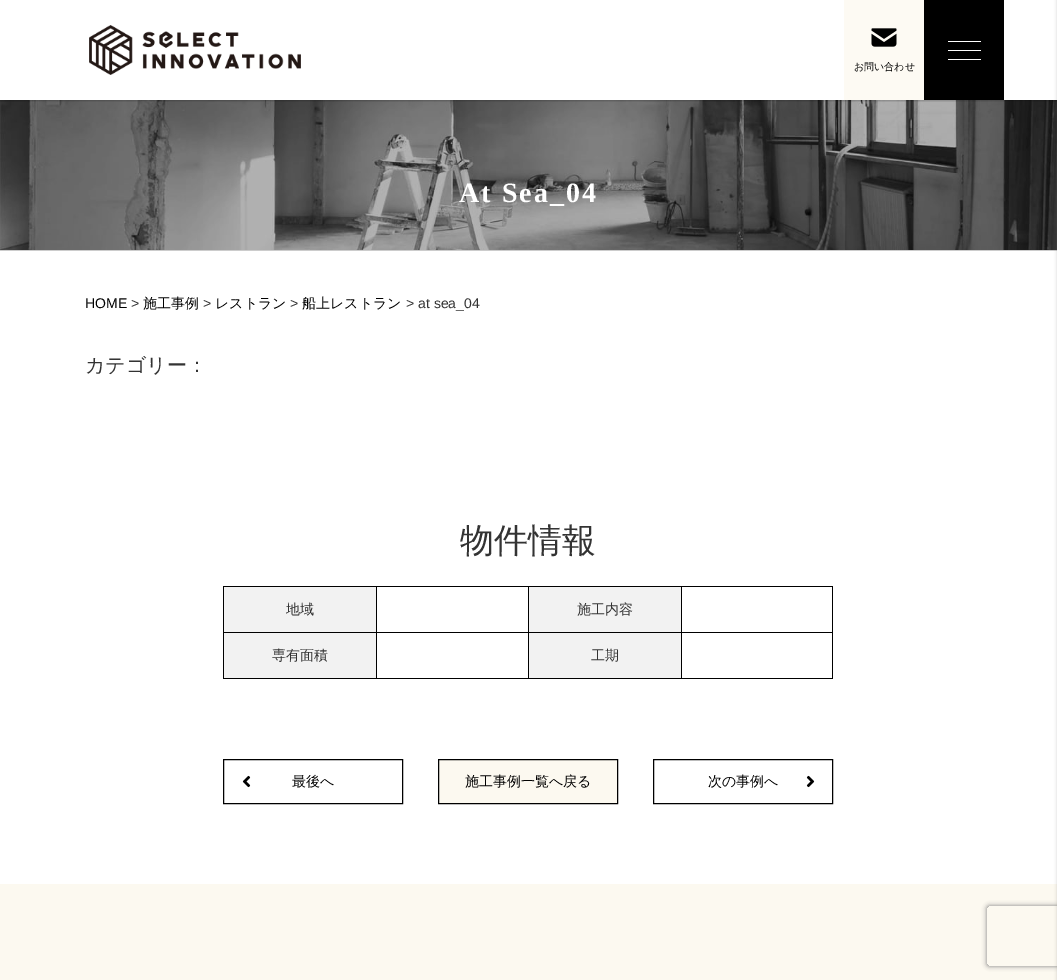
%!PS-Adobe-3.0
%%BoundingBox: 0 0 1057 980
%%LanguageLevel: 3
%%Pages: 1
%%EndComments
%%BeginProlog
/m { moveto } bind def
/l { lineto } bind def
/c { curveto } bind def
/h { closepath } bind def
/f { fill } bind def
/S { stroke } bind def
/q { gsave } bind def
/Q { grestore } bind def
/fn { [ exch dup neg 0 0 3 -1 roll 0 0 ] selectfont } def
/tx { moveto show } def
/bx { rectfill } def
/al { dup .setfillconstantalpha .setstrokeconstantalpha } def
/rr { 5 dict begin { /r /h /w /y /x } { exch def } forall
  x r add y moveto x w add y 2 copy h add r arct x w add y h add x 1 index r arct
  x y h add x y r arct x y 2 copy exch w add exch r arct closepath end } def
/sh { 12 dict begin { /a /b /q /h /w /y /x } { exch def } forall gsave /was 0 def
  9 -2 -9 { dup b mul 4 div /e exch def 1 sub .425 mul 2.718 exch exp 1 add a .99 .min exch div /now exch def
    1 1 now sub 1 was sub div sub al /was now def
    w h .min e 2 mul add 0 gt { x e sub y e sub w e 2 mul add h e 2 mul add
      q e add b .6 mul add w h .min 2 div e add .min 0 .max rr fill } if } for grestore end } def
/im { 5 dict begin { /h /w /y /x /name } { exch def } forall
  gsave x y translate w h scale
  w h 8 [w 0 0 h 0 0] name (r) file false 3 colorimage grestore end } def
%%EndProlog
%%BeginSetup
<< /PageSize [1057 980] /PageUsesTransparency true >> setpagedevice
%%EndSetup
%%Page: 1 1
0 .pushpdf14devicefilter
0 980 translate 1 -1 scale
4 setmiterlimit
1 setgray
0 0 1057 980 bx
(image2.raw) 0 100 1057 150 im
q
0 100 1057 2 rectclip
0 setgray
0 0 1057 100 0 1.5 0.4 sh
Q
(image0.raw) 89 25 212 50 im
0.992 0.98 0.953 setrgbcolor
844 0 80 100 bx
(image1.raw) 871 28 26 19 im
/WenQuanYiZenHei-Medium 10 fn
0 setgray
(お問い合わせ) 854 70 tx
924 0 80 100 bx
1 setgray
948 41 33 1 bx
948 50 33 1 bx
948 59 33 1 bx
0.8 setgray
0 250 1057 1 bx
0.988 0.976 0.941 setrgbcolor
0 884 1057 96 bx
0 setgray
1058 0 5 980 0 2 0.3 sh
/LiberationSerif-Bold 28 fn
1 setgray
459 202 m 2 0 (At Sea_04) ashow
/LiberationSans-Regular 14 fn
0 setgray
(HOME) 85 308 tx
0.2 setgray
(>) 131 308 tx
/WenQuanYiZenHei-Medium 14 fn
0 setgray
(施工事例) 143 308 tx
/LiberationSans-Regular 14 fn
0.2 setgray
(>) 203 308 tx
/WenQuanYiZenHei-Medium 14 fn
0 setgray
(レストラン) 215 308 tx
/LiberationSans-Regular 14 fn
0.2 setgray
(>) 290 308 tx
/WenQuanYiZenHei-Medium 14 fn
0 setgray
(船上レストラン) 302 308 tx
/LiberationSans-Regular 14 fn
0.2 setgray
(> at sea_04) 406 308 tx
/WenQuanYiZenHei-Medium 20 fn
(カテゴリー：) 85 372 tx
/WenQuanYiZenHei-Medium 34 fn
(物件情報) 460 552 tx
0 setgray
223 586 610 1 bx
223 632 610 1 bx
832 632 1 47 bx
832 586 1 47 bx
223 678 610 1 bx
223 632 1 47 bx
223 586 1 47 bx
0.949 setgray
224 587 152 45 bx
/WenQuanYiZenHei-Medium 14 fn
0.2 setgray
(地域) 286 614 tx
0.949 setgray
529 587 152 45 bx
0.2 setgray
(施工内容) 577 614 tx
0.949 setgray
224 633 152 45 bx
0 setgray
376 586 1 93 bx
0.2 setgray
(専有面積) 272 660 tx
0 setgray
528 586 1 93 bx
0.949 setgray
529 633 152 45 bx
0 setgray
681 586 1 93 bx
0.2 setgray
(工期) 591 660 tx
0 setgray
223.5 759.5 179 44 rectstroke
(image3.raw) 242 775 9 13 im
(最後へ) 292 786 tx
0.988 0.976 0.941 setrgbcolor
438.5 759.5 m 617.5 759.5 l 617.5 803.5 l 438.5 803.5 l h q f Q
0 setgray
S
(施工事例一覧へ戻る) 465 786 tx
653.5 759.5 179 44 rectstroke
(次の事例へ) 708 786 tx
(image4.raw) 806 775 9 13 im
q
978 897 m 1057 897 l 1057 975 l 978 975 l h 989 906 m 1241 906 l 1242 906 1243 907 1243 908 c 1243 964 l 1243 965 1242 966 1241 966 c 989 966 l 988 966 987 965 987 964 c 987 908 l 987 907 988 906 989 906 c h eoclip newpath
0.502 setgray
987 906 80 60 2 2.5 1 sh
Q
.poppdf14devicefilter showpage
%%EOF
